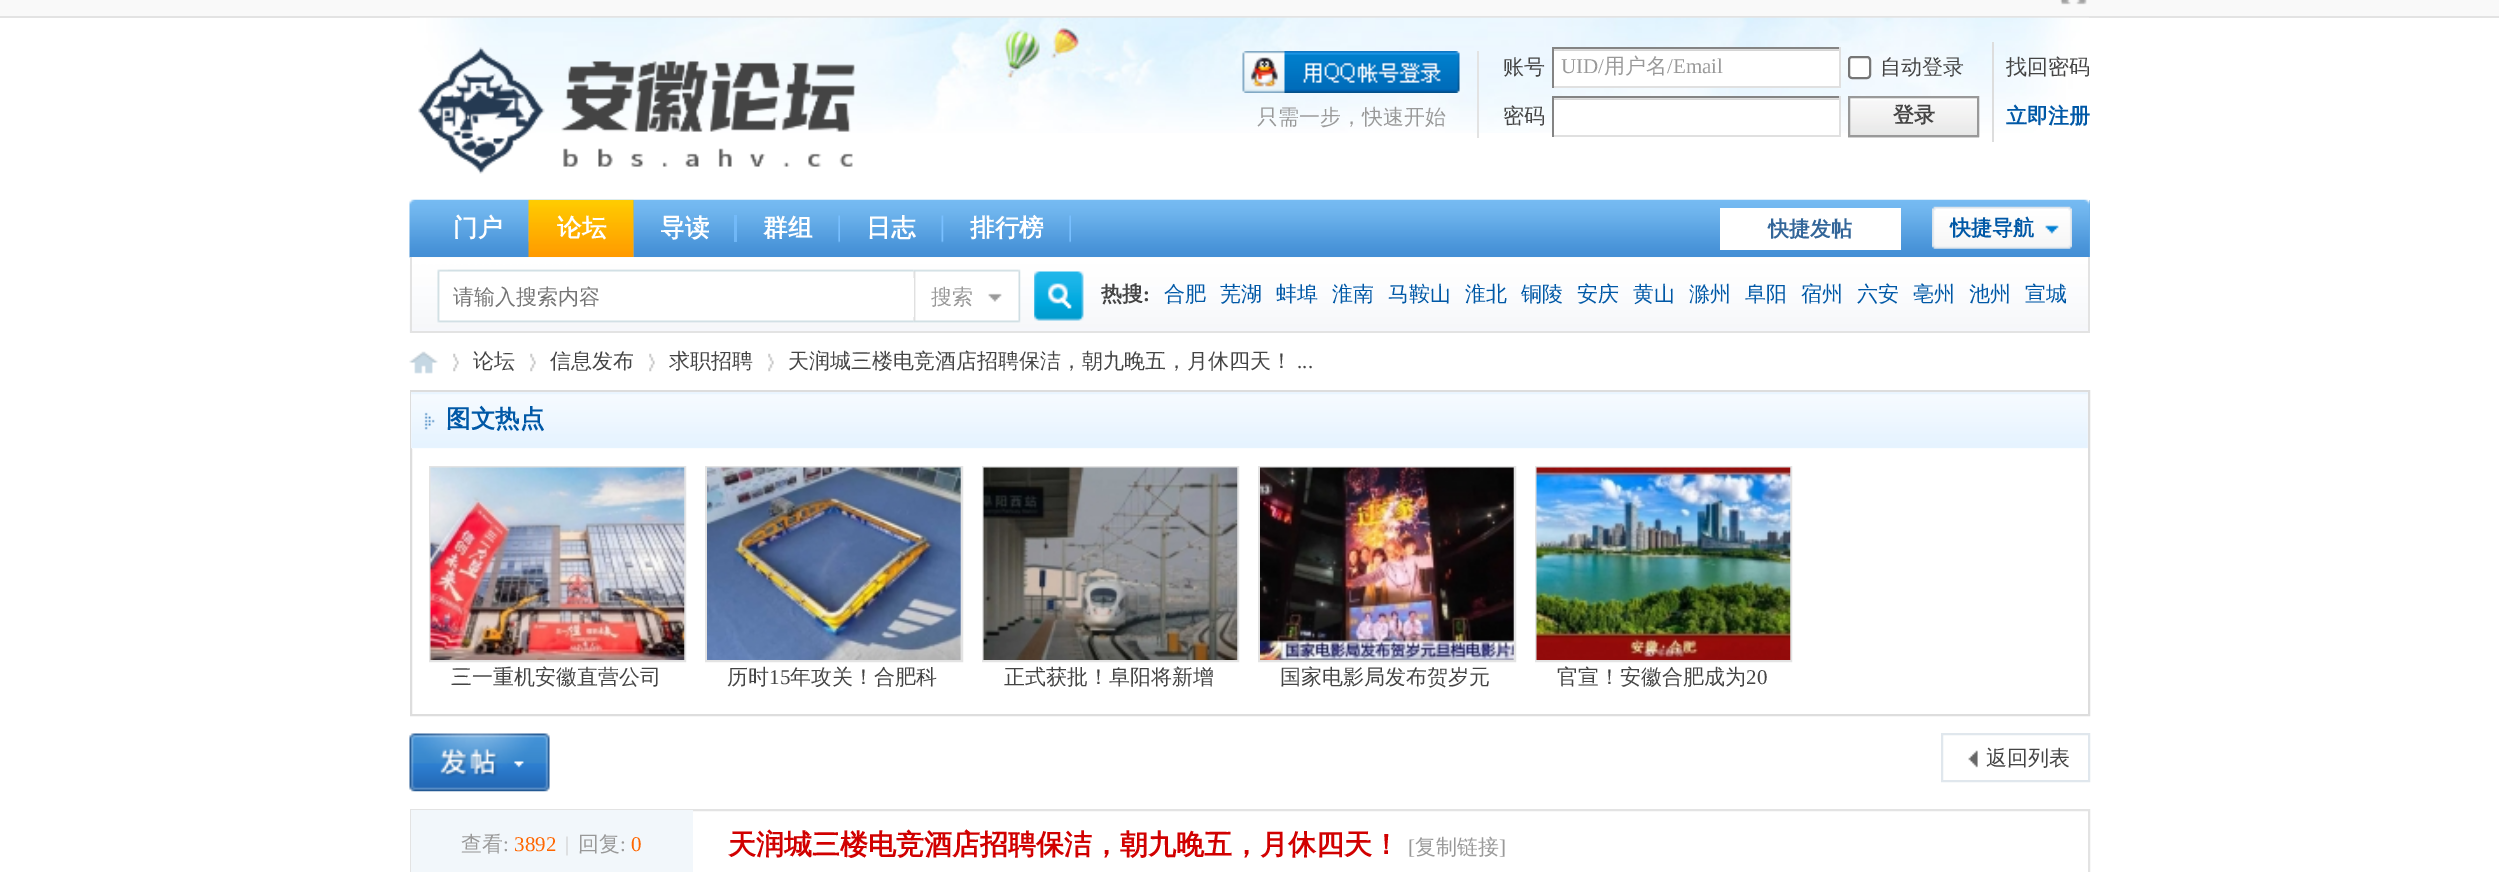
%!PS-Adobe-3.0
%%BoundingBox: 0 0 2499 872
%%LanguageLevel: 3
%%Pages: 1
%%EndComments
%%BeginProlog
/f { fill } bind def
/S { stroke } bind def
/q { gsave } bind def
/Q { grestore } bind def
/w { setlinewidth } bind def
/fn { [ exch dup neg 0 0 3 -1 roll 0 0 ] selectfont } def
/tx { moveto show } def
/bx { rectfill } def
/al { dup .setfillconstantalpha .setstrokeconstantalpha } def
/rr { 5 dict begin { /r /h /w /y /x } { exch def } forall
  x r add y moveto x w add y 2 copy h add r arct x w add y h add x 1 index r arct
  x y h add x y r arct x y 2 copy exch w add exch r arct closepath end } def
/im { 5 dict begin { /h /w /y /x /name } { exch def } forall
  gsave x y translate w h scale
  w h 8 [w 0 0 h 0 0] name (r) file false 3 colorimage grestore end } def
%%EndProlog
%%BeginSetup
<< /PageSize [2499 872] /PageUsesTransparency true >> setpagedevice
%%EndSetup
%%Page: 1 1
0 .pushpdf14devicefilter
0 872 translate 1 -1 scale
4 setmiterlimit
1 setgray
0 0 2499 872 bx
0.976 setgray
0 0 2499 16 bx
0.89 setgray
0 16 2499 2 bx
(image0.raw) 2060 0 27 5 im
(image1.raw) 410 17 1679 116 im
(image2.raw) 418 47 438 127 im
1477 51 2 87 bx
(image3.raw) 1242 51 218 42 im
/WenQuanYiZenHei-Medium 21 fn
0.6 setgray
(只需一步，快速开始) 1257 124 tx
0.267 setgray
(账号) 1503 74 tx
1 setgray
1554 49 285 37 bx
(image4.raw) 1554 49 285 2 im
0.518 setgray
1552 47 289 2 bx
0.878 setgray
1839 47 2 41 bx
1552 86 289 2 bx
0.518 setgray
1552 47 2 41 bx
/LiberationSerif-Regular 21 fn
0.6 setgray
(UID/) 1561 73 tx
/WenQuanYiZenHei-Medium 21 fn
(用户名) 1604 73 tx
/LiberationSerif-Regular 21 fn
(/Email) 1667 73 tx
1 setgray
1849 57 21 21 3 rr q f Q
0.463 setgray
2 w
S
/WenQuanYiZenHei-Medium 21 fn
0.267 setgray
(自动登录) 1880 74 tx
(找回密码) 2006 74 tx
(密码) 1503 123 tx
1 setgray
1554 98 285 35 bx
(image4.raw) 1554 98 285 2 im
0.518 setgray
1552 96 289 2 bx
0.878 setgray
1839 96 2 41 bx
1552 135 289 2 bx
0.518 setgray
1552 96 2 41 bx
0.867 setgray
1992 42 2 100 bx
0.898 setgray
1848 137 131 1 bx
(image5.raw) 1850 98 130 39 im
0.6 setgray
1849 97 129 39 rectstroke
/WenQuanYiZenHei-Bold 21 fn
0.267 setgray
(登录) 1893 122 tx
0 0.345 0.651 setrgbcolor
(立即注册) 2006 123 tx
0.388 0.671 0.906 setrgbcolor
2089 200 1 57 bx
(image6.raw) 409 199 1681 59 im
(image7.raw) 528 215 1 28 im
/WenQuanYiZenHei-Bold 24.5 fn
1 setgray
(门户) 453 236 tx
0.388 0.671 0.906 setrgbcolor
633 200 1 57 bx
(image8.raw) 528 199 106 58 im
1 setgray
(论坛) 557 236 tx
0.75 al
0.471 0.749 1 setrgbcolor
734 215 3 27 bx
1 al
1 setgray
(导读) 660 236 tx
(image9.raw) 838 215 2 28 im
(群组) 763 236 tx
(image10.raw) 941 215 3 28 im
(日志) 866 236 tx
(image9.raw) 1069 215 2 28 im
(排行榜) 970 236 tx
1720 208 181 42 bx
/WenQuanYiZenHei-Bold 21 fn
0.2 0.4 0.6 setrgbcolor
(快捷发帖) 1768 236 tx
(image11.raw) 1932 206 140 43 im
0 0.345 0.651 setrgbcolor
(快捷导航) 1950 235 tx
0.976 setgray
412 257 1676 1 bx
(image12.raw) 409 257 1679 76 im
0.89 setgray
2088 257 2 76 bx
410 331 1680 2 bx
410 257 2 76 bx
(image13.raw) 437 269 11 54 im
(image14.raw) 448 269 466 54 im
(image15.raw) 913 269 108 54 im
1 setgray
913 278 1 39 bx
/WenQuanYiZenHei-Medium 21 fn
0.459 setgray
(请输入搜索内容) 453 304 tx
0.6 setgray
(搜索) 931 304 tx
(image16.raw) 1034 271 50 50 im
/WenQuanYiZenHei-Bold 21 fn
0.267 setgray
(热搜) 1101 301 tx
/LiberationSerif-Bold 21 fn
(:) 1143 301 tx
/WenQuanYiZenHei-Medium 21 fn
0 0.345 0.651 setrgbcolor
(合肥) 1164 301 tx
(芜湖) 1220 301 tx
(蚌埠) 1276 301 tx
(淮南) 1332 301 tx
(马鞍山) 1388 301 tx
(淮北) 1465 301 tx
(铜陵) 1521 301 tx
(安庆) 1577 301 tx
(黄山) 1633 301 tx
(滁州) 1689 301 tx
(阜阳) 1745 301 tx
(宿州) 1801 301 tx
(六安) 1857 301 tx
(亳州) 1913 301 tx
(池州) 1969 301 tx
(宣城) 2025 301 tx
(image17.raw) 409 351 29 23 im
(image18.raw) 453 353 6 19 im
0.267 setgray
(论坛) 473 368 tx
(image18.raw) 530 353 6 19 im
(信息发布) 550 368 tx
(image18.raw) 649 353 6 19 im
(求职招聘) 669 368 tx
(image18.raw) 768 353 6 19 im
(天润城三楼电竞酒店招聘保洁，朝九晚五，月休四天！) 788 368 tx
/LiberationSerif-Regular 21 fn
(...) 1297 368 tx
0.867 setgray
411 391 1678 324 rectstroke
0.976 setgray
411 392 1677 56 bx
(image19.raw) 411 392 1677 57 im
/WenQuanYiZenHei-Bold 24.5 fn
0 0.345 0.651 setrgbcolor
(图文热点) 446 427 tx
0.89 setgray
430 467 255 194 rectstroke
(image20.raw) 430 467 255 193 im
/WenQuanYiZenHei-Medium 21 fn
0.267 setgray
(三一重机安徽直营公司) 451 684 tx
0.89 setgray
706 467 256 194 rectstroke
(image21.raw) 707 467 254 193 im
0.267 setgray
(历时) 727 684 tx
/LiberationSerif-Regular 21 fn
(15) 769 684 tx
/WenQuanYiZenHei-Medium 21 fn
(年攻关！合肥科) 790 684 tx
0.89 setgray
983 467 255 194 rectstroke
(image22.raw) 983 467 255 193 im
0.267 setgray
(正式获批！阜阳将新增) 1004 684 tx
0.89 setgray
1259 467 256 194 rectstroke
(image23.raw) 1260 467 254 193 im
0.267 setgray
(国家电影局发布贺岁元) 1280 684 tx
0.89 setgray
1536 467 255 194 rectstroke
(image24.raw) 1536 467 255 193 im
0.267 setgray
(官宣！安徽合肥成为) 1557 684 tx
/LiberationSerif-Regular 21 fn
(20) 1746 684 tx
(image25.raw) 409 733 141 59 im
(image26.raw) 1968 750 10 18 im
0.878 0.906 0.929 setrgbcolor
1942 734 147 47 rectstroke
/WenQuanYiZenHei-Medium 21 fn
0.267 setgray
(返回列表) 1986 765 tx
0.89 setgray
411 810 1678 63 rectstroke
0.949 0.969 0.984 setrgbcolor
411 810 282 62 bx
0.6 setgray
(查看) 461 851 tx
/LiberationSerif-Regular 21 fn
(:) 503 851 tx
1 0.4 0 setrgbcolor
(3892) 514 851 tx
0.8 setgray
(|) 565 851 tx
/WenQuanYiZenHei-Medium 21 fn
0.6 setgray
(回复) 578 851 tx
/LiberationSerif-Regular 21 fn
(:) 620 851 tx
1 0.4 0 setrgbcolor
(0) 631 851 tx
/WenQuanYiZenHei-Bold 28 fn
0.82 0 0 setrgbcolor
(天润城三楼电竞酒店招聘保洁，朝九晚五，月休四天！) 728 854 tx
/LiberationSerif-Regular 21 fn
0.6 setgray
([) 1408 854 tx
/WenQuanYiZenHei-Medium 21 fn
(复制链接) 1415 854 tx
/LiberationSerif-Regular 21 fn
(]) 1499 854 tx
.poppdf14devicefilter showpage
%%EOF
